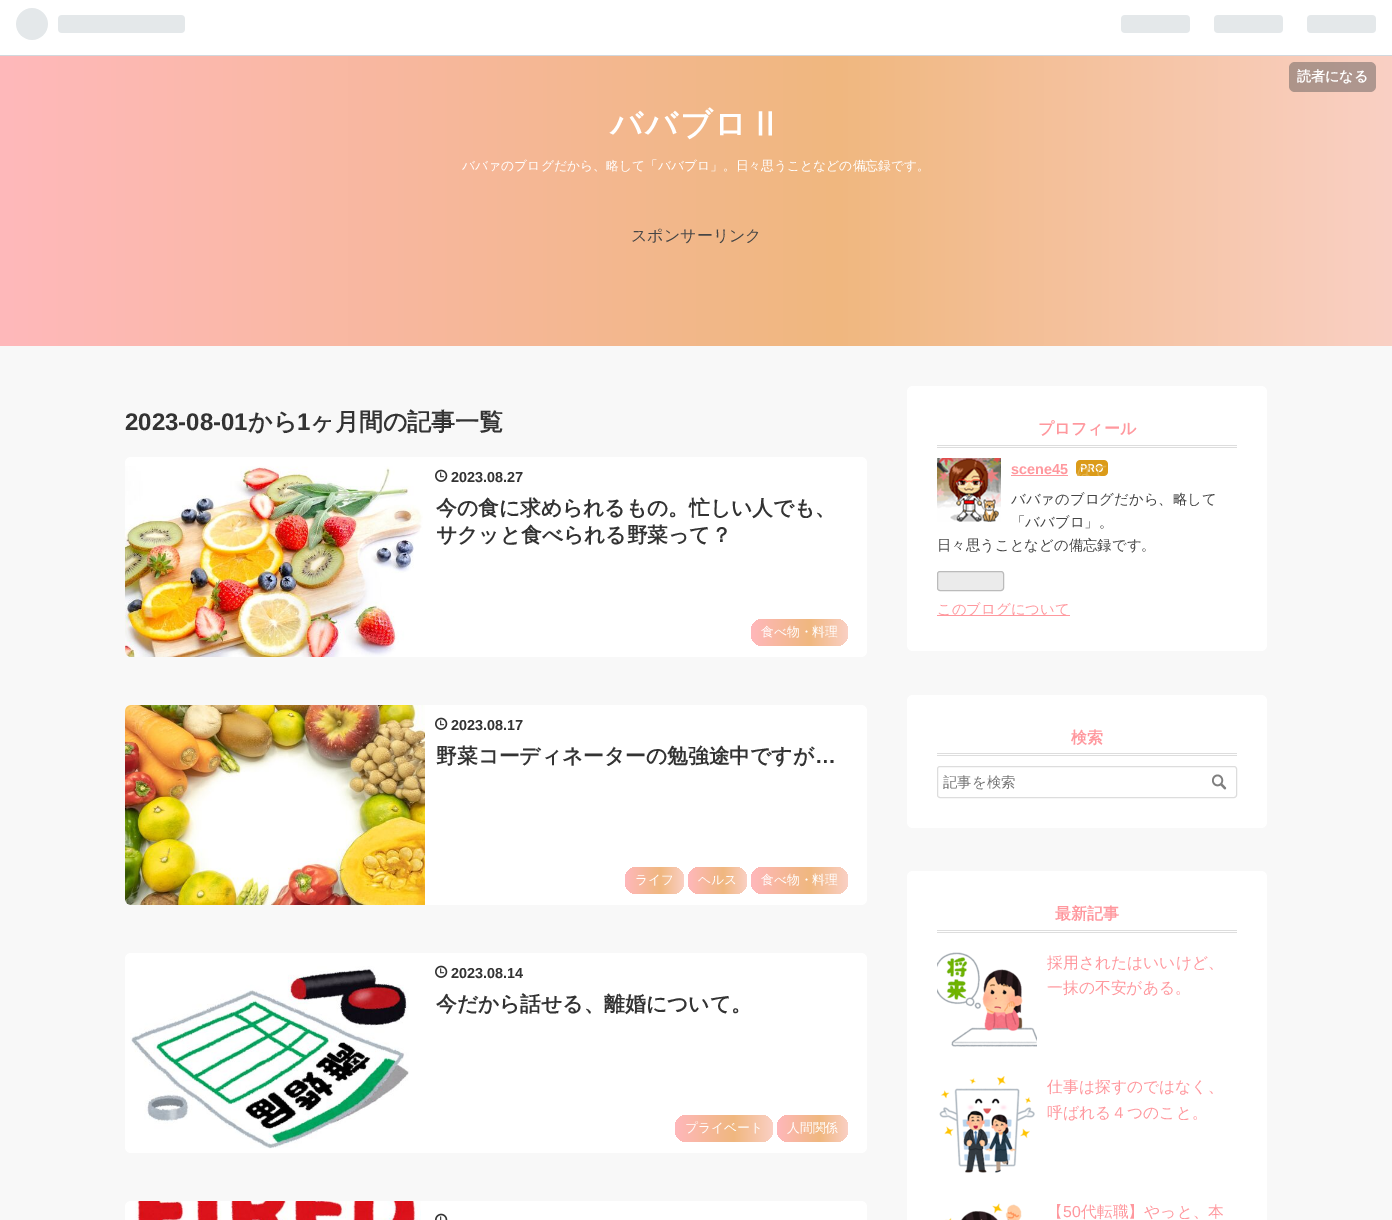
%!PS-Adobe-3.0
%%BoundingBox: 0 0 1392 1220
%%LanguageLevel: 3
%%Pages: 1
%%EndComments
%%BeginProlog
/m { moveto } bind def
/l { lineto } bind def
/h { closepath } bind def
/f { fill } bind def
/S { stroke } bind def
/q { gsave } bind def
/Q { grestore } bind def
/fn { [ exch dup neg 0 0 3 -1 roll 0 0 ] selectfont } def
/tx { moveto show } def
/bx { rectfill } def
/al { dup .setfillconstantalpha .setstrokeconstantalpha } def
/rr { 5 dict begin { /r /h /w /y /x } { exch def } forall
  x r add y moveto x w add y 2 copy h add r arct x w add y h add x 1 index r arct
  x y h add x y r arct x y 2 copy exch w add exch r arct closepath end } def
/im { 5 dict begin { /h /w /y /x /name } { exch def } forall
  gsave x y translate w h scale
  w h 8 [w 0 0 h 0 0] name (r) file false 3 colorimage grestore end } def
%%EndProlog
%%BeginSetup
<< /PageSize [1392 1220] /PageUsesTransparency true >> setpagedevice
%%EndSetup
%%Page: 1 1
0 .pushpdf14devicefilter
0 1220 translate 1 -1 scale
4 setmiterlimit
1 setgray
0 0 1392 1220 bx
q 0 56 m 1392 56 l 1392 346 l 0 346 l h clip newpath
<< /ShadingType 2 /ColorSpace /DeviceRGB /Coords [0 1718 1392 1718] /Extend [true true] /Function << /FunctionType 3 /Domain [0 1] /Functions [<< /FunctionType 2 /Domain [0 1] /C0 [1 0.722 0.733] /C1 [0.941 0.718 0.498] /N 1 >> << /FunctionType 2 /Domain [0 1] /C0 [0.941 0.718 0.498] /C1 [0.98 0.816 0.769] /N 1 >>] /Bounds [0.6] /Encode [0 1 0 1] >> >> shfill Q
0.824 0.847 0.867 setrgbcolor
0 55 1392 1 bx
(image0.raw) 16 8 169 32 im
(image1.raw) 1121 15 255 18 im
0.4 al
0.239 0.259 0.271 setrgbcolor
1289 62 87 30 6 rr f
/WenQuanYiZenHei-Bold 14 fn
1 al
1 setgray
(読者になる) 1297 81 tx
/WenQuanYiZenHei-Bold 32 fn
610 135 m 2 0 (ババブロⅡ) ashow
/WenQuanYiZenHei-Medium 12.8 fn
(ババァのブログだから、略して「ババブロ」。日々思うことなどの備忘録です。) 462 170 tx
/WenQuanYiZenHei-Medium 16 fn
0.271 setgray
(スポンサーリンク) 631 241 tx
0.973 setgray
0 346 1392 874 bx
/LiberationSans-Bold 24 fn
0.2 setgray
(2023-08-01) 125 430 tx
/WenQuanYiZenHei-Bold 24 fn
(から) 248 430 tx
/LiberationSans-Bold 24 fn
(1) 297 430 tx
/WenQuanYiZenHei-Bold 24 fn
(ヶ月間の記事一覧) 310 430 tx
1 setgray
125 457 742 200 6 rr f
(image2.raw) 125 466 298 191 im
(image3.raw) 435 469 13 13 im
/LiberationSans-Bold 14.4 fn
0.2 setgray
(2023.08.27) 451 482 tx
/WenQuanYiZenHei-Bold 20.75 fn
(今の食に求められるもの。忙しい人でも、) 436 515 tx
(サクッと食べられる野菜って？) 436 542 tx
q 751 619 97 27 12 rr clip newpath
<< /ShadingType 2 /ColorSpace /DeviceRGB /Coords [751 633 848 633] /Extend [true true] /Function << /FunctionType 3 /Domain [0 1] /Functions [<< /FunctionType 2 /Domain [0 1] /C0 [1 0.722 0.733] /C1 [0.941 0.718 0.498] /N 1 >> << /FunctionType 2 /Domain [0 1] /C0 [0.941 0.718 0.498] /C1 [0.98 0.816 0.769] /N 1 >>] /Bounds [0.6] /Encode [0 1 0 1] >> >> shfill Q
/WenQuanYiZenHei-Medium 12.8 fn
1 setgray
(食べ物・料理) 761 636 tx
125 705 742 200 6 rr f
(image4.raw) 125 705 300 200 im
(image3.raw) 435 717 13 13 im
/LiberationSans-Bold 14.4 fn
0.2 setgray
(2023.08.17) 451 730 tx
/WenQuanYiZenHei-Bold 20.75 fn
(野菜コーディネーターの勉強途中ですが) 436 763 tx
/LiberationSans-Bold 20.75 fn
(…) 815 763 tx
q 625 867 59 27 12 rr clip newpath
<< /ShadingType 2 /ColorSpace /DeviceRGB /Coords [625 881 684 881] /Extend [true true] /Function << /FunctionType 3 /Domain [0 1] /Functions [<< /FunctionType 2 /Domain [0 1] /C0 [1 0.722 0.733] /C1 [0.941 0.718 0.498] /N 1 >> << /FunctionType 2 /Domain [0 1] /C0 [0.941 0.718 0.498] /C1 [0.98 0.816 0.769] /N 1 >>] /Bounds [0.6] /Encode [0 1 0 1] >> >> shfill Q
/WenQuanYiZenHei-Medium 12.8 fn
1 setgray
(ライフ) 635 884 tx
q 688 867 59 27 12 rr clip newpath
<< /ShadingType 2 /ColorSpace /DeviceRGB /Coords [688 881 747 881] /Extend [true true] /Function << /FunctionType 3 /Domain [0 1] /Functions [<< /FunctionType 2 /Domain [0 1] /C0 [1 0.722 0.733] /C1 [0.941 0.718 0.498] /N 1 >> << /FunctionType 2 /Domain [0 1] /C0 [0.941 0.718 0.498] /C1 [0.98 0.816 0.769] /N 1 >>] /Bounds [0.6] /Encode [0 1 0 1] >> >> shfill Q
(ヘルス) 698 884 tx
q 751 867 97 27 12 rr clip newpath
<< /ShadingType 2 /ColorSpace /DeviceRGB /Coords [751 881 848 881] /Extend [true true] /Function << /FunctionType 3 /Domain [0 1] /Functions [<< /FunctionType 2 /Domain [0 1] /C0 [1 0.722 0.733] /C1 [0.941 0.718 0.498] /N 1 >> << /FunctionType 2 /Domain [0 1] /C0 [0.941 0.718 0.498] /C1 [0.98 0.816 0.769] /N 1 >>] /Bounds [0.6] /Encode [0 1 0 1] >> >> shfill Q
(食べ物・料理) 761 884 tx
125 953 742 200 6 rr f
(image5.raw) 130 966 279 183 im
(image3.raw) 435 965 13 13 im
/LiberationSans-Bold 14.4 fn
0.2 setgray
(2023.08.14) 451 978 tx
/WenQuanYiZenHei-Bold 20.75 fn
(今だから話せる、離婚について。) 436 1011 tx
q 675 1115 98 27 12 rr clip newpath
<< /ShadingType 2 /ColorSpace /DeviceRGB /Coords [675 1129 773 1129] /Extend [true true] /Function << /FunctionType 3 /Domain [0 1] /Functions [<< /FunctionType 2 /Domain [0 1] /C0 [1 0.722 0.733] /C1 [0.941 0.718 0.498] /N 1 >> << /FunctionType 2 /Domain [0 1] /C0 [0.941 0.718 0.498] /C1 [0.98 0.816 0.769] /N 1 >>] /Bounds [0.6] /Encode [0 1 0 1] >> >> shfill Q
/WenQuanYiZenHei-Medium 12.8 fn
1 setgray
(プライベート) 685 1132 tx
q 777 1115 71 27 12 rr clip newpath
<< /ShadingType 2 /ColorSpace /DeviceRGB /Coords [777 1129 848 1129] /Extend [true true] /Function << /FunctionType 3 /Domain [0 1] /Functions [<< /FunctionType 2 /Domain [0 1] /C0 [1 0.722 0.733] /C1 [0.941 0.718 0.498] /N 1 >> << /FunctionType 2 /Domain [0 1] /C0 [0.941 0.718 0.498] /C1 [0.98 0.816 0.769] /N 1 >>] /Bounds [0.6] /Encode [0 1 0 1] >> >> shfill Q
(人間関係) 787 1132 tx
125 1201 742 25 6 rr f
(image6.raw) 135 1201 286 19 im
(image7.raw) 435 1213 13 7 im
907 386 360 265 6 rr f
0.867 setgray
937 445 300 1 bx
937 447 300 1 bx
/WenQuanYiZenHei-Bold 16 fn
1 0.596 0.62 setrgbcolor
(プロフィール) 1038 434 tx
(image8.raw) 937 458 64 64 im
/LiberationSans-Bold 14.4 fn
(scene45) 1011 474 tx
1011 475 57 1 bx
(image9.raw) 1076 460 32 16 im
q
1076 460 32 16 rectclip
/WenQuanYiZenHei-BoldItalic 14.4 fn
0.886 0.69 0.286 setrgbcolor
(はて) 1076 476 tx
Q
/WenQuanYiZenHei-Medium 14.4 fn
0.271 setgray
(ババァのブログだから、略して) 1011 504 tx
(「ババブロ」。) 1011 527 tx
(日々思うことなどの備忘録です。) 937 550 tx
0.922 setgray
937.5 571.5 66 19 2.5 rr q f Q
0.733 setgray
S
1 0.596 0.62 setrgbcolor
937 615 133 1 bx
(このブログについて) 937 614 tx
1 setgray
907 695 360 133 6 rr f
0.867 setgray
937 753 300 1 bx
937 755 300 1 bx
/WenQuanYiZenHei-Bold 16 fn
1 0.596 0.62 setrgbcolor
(検索) 1071 743 tx
0.867 setgray
937.5 766.5 299 31 2.5 rr S
/WenQuanYiZenHei-Medium 14.4 fn
0.459 setgray
(記事を検索) 943 787 tx
(image10.raw) 1212 774 15 16 im
1 setgray
907 871 360 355 6 rr f
0.867 setgray
937 930 300 1 bx
937 932 300 1 bx
/WenQuanYiZenHei-Bold 16 fn
1 0.596 0.62 setrgbcolor
(最新記事) 1055 919 tx
(image11.raw) 937 952 100 95 im
/WenQuanYiZenHei-Medium 15.8 fn
(採用されたはいいけど、) 1047 968 tx
(一抹の不安がある。) 1047 993 tx
(image12.raw) 939 1076 96 97 im
(仕事は探すのではなく、) 1047 1092 tx
(呼ばれる４つのこと。) 1047 1118 tx
(image13.raw) 945 1203 77 17 im
(【) 1047 1217 tx
/LiberationSans-Regular 15.8 fn
(50) 1063 1217 tx
/WenQuanYiZenHei-Medium 15.8 fn
(代転職】やっと、本) 1081 1217 tx
.poppdf14devicefilter showpage
%%EOF
